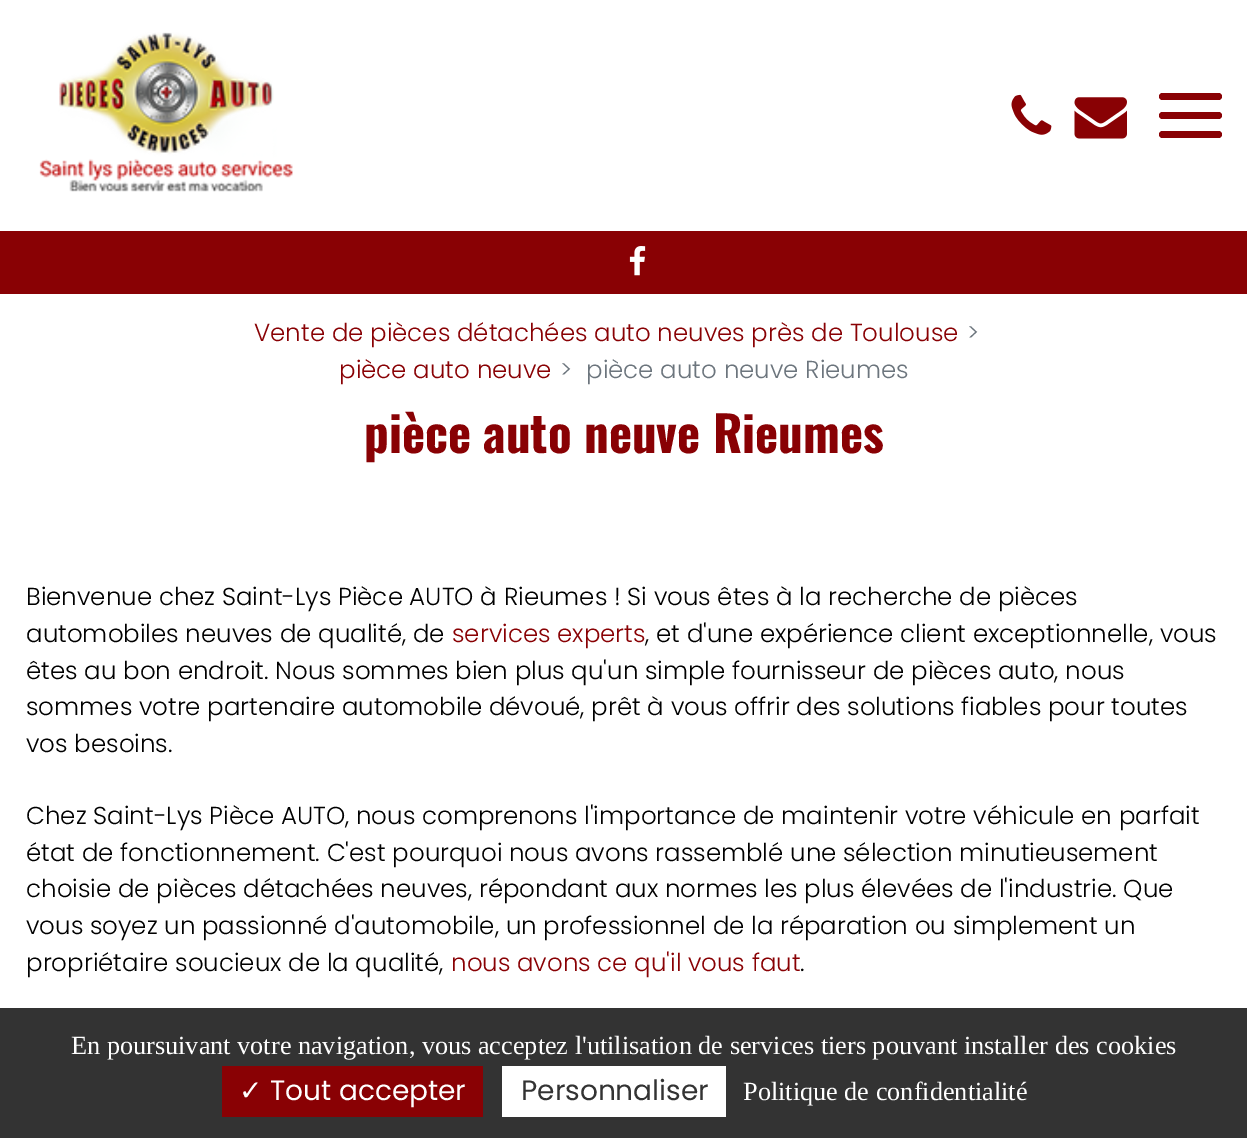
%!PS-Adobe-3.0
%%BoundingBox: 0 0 1247 1138
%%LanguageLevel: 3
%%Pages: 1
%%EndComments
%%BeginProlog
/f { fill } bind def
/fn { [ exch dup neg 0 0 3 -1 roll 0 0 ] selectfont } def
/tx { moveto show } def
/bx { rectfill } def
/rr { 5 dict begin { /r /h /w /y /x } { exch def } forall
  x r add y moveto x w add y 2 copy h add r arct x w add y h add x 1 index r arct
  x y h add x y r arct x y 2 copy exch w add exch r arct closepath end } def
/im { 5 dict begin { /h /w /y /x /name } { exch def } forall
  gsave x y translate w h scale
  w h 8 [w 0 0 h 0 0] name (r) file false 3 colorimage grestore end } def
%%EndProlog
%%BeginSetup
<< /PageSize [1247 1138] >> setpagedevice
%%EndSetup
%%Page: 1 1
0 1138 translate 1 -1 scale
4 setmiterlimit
1 setgray
0 0 1247 1138 bx
(image0.raw) 39 32 254 160 im
0.537 0.004 0.016 setrgbcolor
1159 93 63 7 3.5 rr f
1159 112 63 7 3.5 rr f
1159 131 63 7 3.5 rr f
(image1.raw) 1011 94 41 41 im
(image2.raw) 1074 97 53 42 im
0 231 1247 63 bx
(image3.raw) 629 246 17 30 im
/Poppins-Light 24.5 fn
(Vente de pièces détachées auto neuves près de Toulouse) 254 341 tx
0.424 0.459 0.49 setrgbcolor
(>) 967 341 tx
0.537 0.004 0.016 setrgbcolor
(pièce auto neuve) 339 378 tx
0.424 0.459 0.49 setrgbcolor
(>) 560 378 tx
(pièce auto neuve Rieumes) 586 378 tx
/Oswald-Bold 49 fn
0.537 0.004 0.016 setrgbcolor
(pièce auto neuve Rieumes) 364 453 tx
/Poppins-Light 24.5 fn
0 setgray
(Bienvenue chez Saint-Lys Pièce AUTO à Rieumes ! Si vous êtes à la recherche de pièces) 26 605 tx
(automobiles neuves de qualité, de) 26 642 tx
0.537 0.004 0.016 setrgbcolor
(services experts) 452 642 tx
0 setgray
(, et d'une expérience client exceptionnelle, vous) 645 642 tx
(êtes au bon endroit. Nous sommes bien plus qu'un simple fournisseur de pièces auto, nous) 26 679 tx
(sommes votre partenaire automobile dévoué, prêt à vous offrir des solutions fiables pour toutes) 26 715 tx
(vos besoins.) 26 752 tx
(Chez Saint-Lys Pièce AUTO, nous comprenons l'importance de maintenir votre véhicule en parfait) 26 824 tx
(état de fonctionnement. C'est pourquoi nous avons rassemblé une sélection minutieusement) 26 861 tx
(choisie de pièces détachées neuves, répondant aux normes les plus élevées de l'industrie. Que) 26 897 tx
(vous soyez un passionné d'automobile, un professionnel de la réparation ou simplement un) 26 934 tx
(propriétaire soucieux de la qualité,) 26 971 tx
0.537 0.004 0.016 setrgbcolor
(nous avons ce qu'il vous faut) 451 971 tx
0 setgray
(.) 800 971 tx
0.2 setgray
0 1008 1247 130 bx
/LiberationSerif-Regular 26.25 fn
1 setgray
(En poursuivant votre navigation, vous acceptez l'utilisation de services tiers pouvant installer des cookies) 71 1054 tx
0.537 0.004 0.016 setrgbcolor
222 1066 261 51 bx
/DejaVuSans-Regular 28 fn
1 setgray
(✓) 239 1100 tx
/Poppins-Regular 28 fn
(Tout accepter) 270 1100 tx
502 1066 224 51 bx
0.2 setgray
(Personnaliser) 521 1100 tx
/LiberationSerif-Regular 26.25 fn
1 setgray
(Politique de confidentialité) 743 1100 tx
showpage
%%EOF
